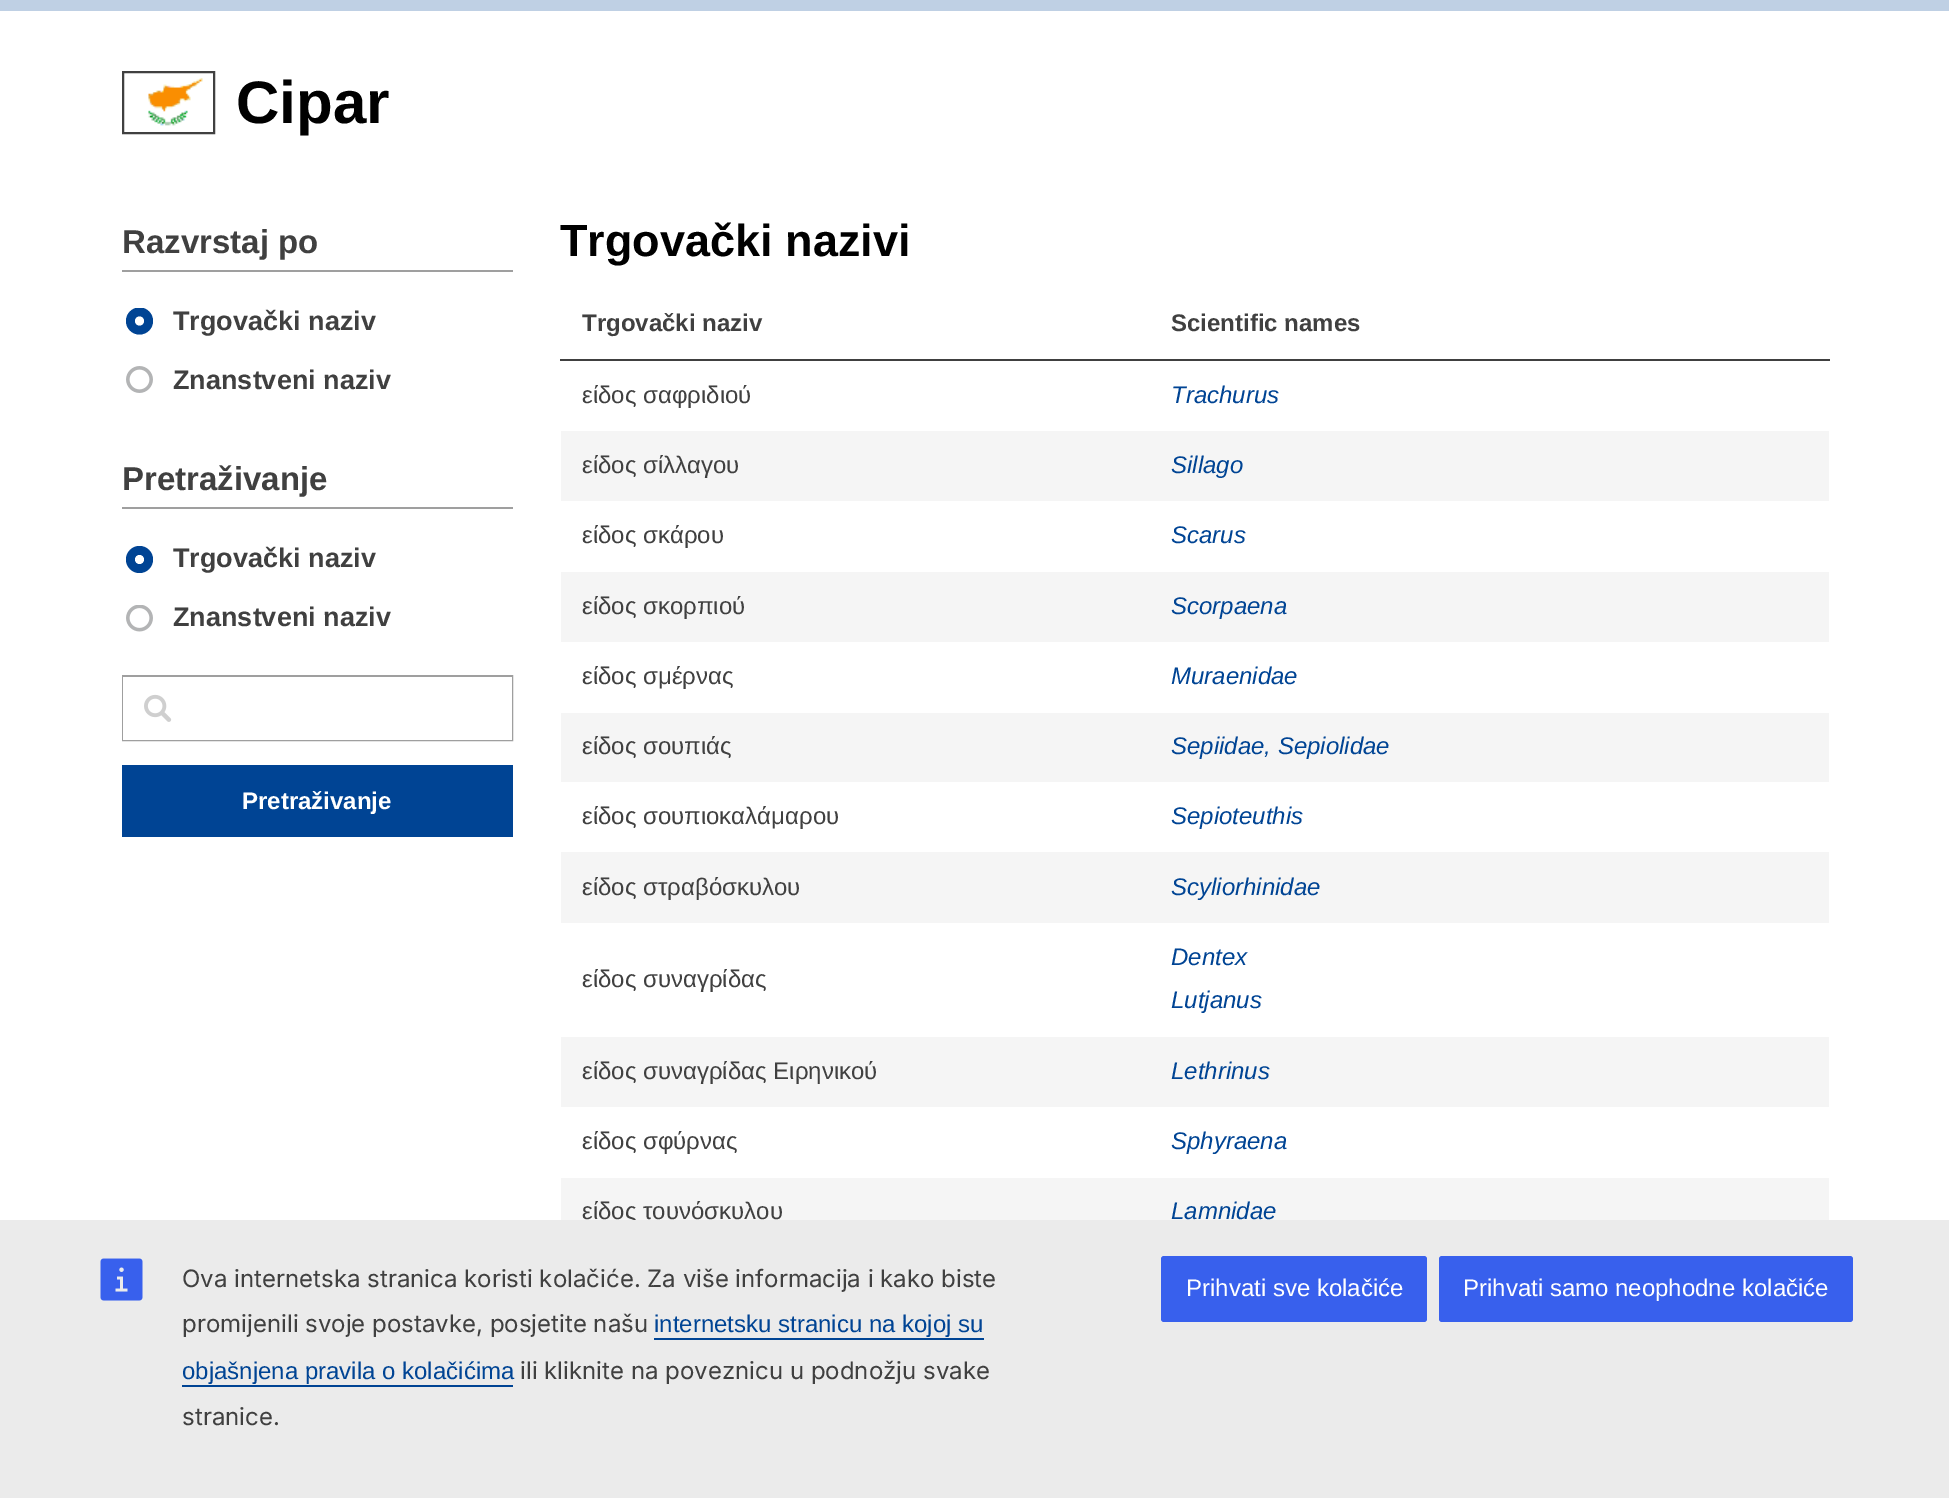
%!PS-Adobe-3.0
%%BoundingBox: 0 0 1949 1498
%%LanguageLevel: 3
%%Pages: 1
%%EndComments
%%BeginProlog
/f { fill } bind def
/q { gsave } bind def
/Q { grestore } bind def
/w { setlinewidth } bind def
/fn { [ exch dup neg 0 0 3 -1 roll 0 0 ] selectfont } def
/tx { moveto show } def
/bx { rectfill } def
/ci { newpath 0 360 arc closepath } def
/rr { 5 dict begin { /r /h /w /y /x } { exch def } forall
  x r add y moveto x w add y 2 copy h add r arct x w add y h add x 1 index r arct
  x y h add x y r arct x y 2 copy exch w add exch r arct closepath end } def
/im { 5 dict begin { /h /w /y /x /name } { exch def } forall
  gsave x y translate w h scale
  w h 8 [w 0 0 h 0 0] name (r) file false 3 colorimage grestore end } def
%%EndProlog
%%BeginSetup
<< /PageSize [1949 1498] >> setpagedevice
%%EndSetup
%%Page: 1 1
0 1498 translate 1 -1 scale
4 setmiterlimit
1 setgray
0 0 1949 1498 bx
0.749 0.816 0.894 setrgbcolor
0 0 1949 11 bx
(image0.raw) 148 78 55 48 im
0.251 setgray
2 w
123 72 91 61 rectstroke
/LiberationSans-Bold 60 fn
0 setgray
(Cipar) 236 123 tx
0.624 setgray
122 270 391 2 bx
/LiberationSans-Bold 33 fn
0.251 setgray
(Razvrstaj po) 122 253 tx
q
126 308 27 27 rectclip
0 0.267 0.58 setrgbcolor
139.5 321 13.5 ci f
Q
1 setgray
139.5 321 4.5 ci f
/LiberationSans-Bold 27 fn
0.251 setgray
(Trgovački naziv) 173 330 tx
(image1.raw) 126 366 27 27 im
(Znanstveni naziv) 173 389 tx
0.624 setgray
122 507 391 2 bx
/LiberationSans-Bold 33 fn
0.251 setgray
(Pretraživanje) 122 490 tx
0 0.267 0.58 setrgbcolor
139.5 559.5 13.5 ci f
1 setgray
139.5 559.5 4.5 ci f
/LiberationSans-Bold 27 fn
0.251 setgray
(Trgovački naziv) 173 567 tx
(image2.raw) 126 605 27 27 im
(Znanstveni naziv) 173 626 tx
0.624 setgray
123 676 389 64 rectstroke
1 setgray
123 677 389 63 bx
(image3.raw) 144 694 28 28 im
0 0.267 0.58 setrgbcolor
122 765 391 72 bx
/LiberationSans-Bold 24 fn
1 setgray
(Pretraživanje) 242 809 tx
/LiberationSans-Bold 45 fn
0 setgray
(Trgovački nazivi) 560 256 tx
/LiberationSans-Bold 24 fn
0.251 setgray
(Trgovački naziv) 582 331 tx
560 359 1270 2 bx
(Scientific names) 1171 331 tx
/LiberationSans-Regular 24 fn
(είδος σαφριδιού) 582 403 tx
/LiberationSans-Italic 24 fn
0 0.267 0.58 setrgbcolor
(Trachurus) 1171 403 tx
0.961 setgray
561 431 1268 70 bx
/LiberationSans-Regular 24 fn
0.251 setgray
(είδος σίλλαγου) 582 473 tx
/LiberationSans-Italic 24 fn
0 0.267 0.58 setrgbcolor
(Sillago) 1171 473 tx
/LiberationSans-Regular 24 fn
0.251 setgray
(είδος σκάρου) 582 543 tx
/LiberationSans-Italic 24 fn
0 0.267 0.58 setrgbcolor
(Scarus) 1171 543 tx
0.961 setgray
561 572 1268 70 bx
/LiberationSans-Regular 24 fn
0.251 setgray
(είδος σκορπιού) 582 614 tx
/LiberationSans-Italic 24 fn
0 0.267 0.58 setrgbcolor
(Scorpaena) 1171 614 tx
/LiberationSans-Regular 24 fn
0.251 setgray
(είδος σμέρνας) 582 684 tx
/LiberationSans-Italic 24 fn
0 0.267 0.58 setrgbcolor
(Muraenidae) 1171 684 tx
0.961 setgray
561 713 1268 69 bx
/LiberationSans-Regular 24 fn
0.251 setgray
(είδος σουπιάς) 582 754 tx
/LiberationSans-Italic 24 fn
0 0.267 0.58 setrgbcolor
(Sepiidae, Sepiolidae) 1171 754 tx
/LiberationSans-Regular 24 fn
0.251 setgray
(είδος σουπιοκαλάμαρου) 582 824 tx
/LiberationSans-Italic 24 fn
0 0.267 0.58 setrgbcolor
(Sepioteuthis) 1171 824 tx
0.961 setgray
561 852 1268 71 bx
/LiberationSans-Regular 24 fn
0.251 setgray
(είδος στραβόσκυλου) 582 895 tx
/LiberationSans-Italic 24 fn
0 0.267 0.58 setrgbcolor
(Scyliorhinidae) 1171 895 tx
/LiberationSans-Regular 24 fn
0.251 setgray
(είδος συναγρίδας) 582 987 tx
/LiberationSans-Italic 24 fn
0 0.267 0.58 setrgbcolor
(Dentex) 1171 965 tx
(Lutjanus) 1171 1008 tx
0.961 setgray
561 1037 1268 70 bx
/LiberationSans-Regular 24 fn
0.251 setgray
(είδος συναγρίδας Ειρηνικού) 582 1079 tx
/LiberationSans-Italic 24 fn
0 0.267 0.58 setrgbcolor
(Lethrinus) 1171 1079 tx
/LiberationSans-Regular 24 fn
0.251 setgray
(είδος σφύρνας) 582 1149 tx
/LiberationSans-Italic 24 fn
0 0.267 0.58 setrgbcolor
(Sphyraena) 1171 1149 tx
0.961 setgray
561 1178 1268 42 bx
/LiberationSans-Regular 24 fn
0.251 setgray
(είδος τουνόσκυλου) 582 1219 tx
/LiberationSans-Italic 24 fn
0 0.267 0.58 setrgbcolor
(Lamnidae) 1171 1219 tx
0.922 setgray
0 1220 1949 278 bx
(image4.raw) 100 1258 43 43 im
/Inter-Regular 24 fn
0.251 setgray
(Ova internetska stranica koristi kolačiće. Za više informacija i kako biste) 182 1287 tx
(promijenili svoje postavke, posjetite našu) 182 1332 tx
/LiberationSans-Regular 24 fn
0 0.267 0.58 setrgbcolor
(internetsku stranicu na kojoj su) 654 1332 tx
654 1338 330 2 bx
(objašnjena pravila o kolačićima) 182 1379 tx
182 1385 331 2 bx
/Inter-Regular 24 fn
0.251 setgray
(ili kliknite na poveznicu u podnožju svake) 520 1379 tx
(stranice.) 182 1425 tx
0.22 0.376 0.929 setrgbcolor
1161 1256 266 66 3 rr f
/LiberationSans-Regular 24 fn
1 setgray
(Prihvati sve kolačiće) 1186 1296 tx
0.22 0.376 0.929 setrgbcolor
1439 1256 414 66 3 rr f
1 setgray
(Prihvati samo neophodne kolačiće) 1463 1296 tx
showpage
%%EOF
